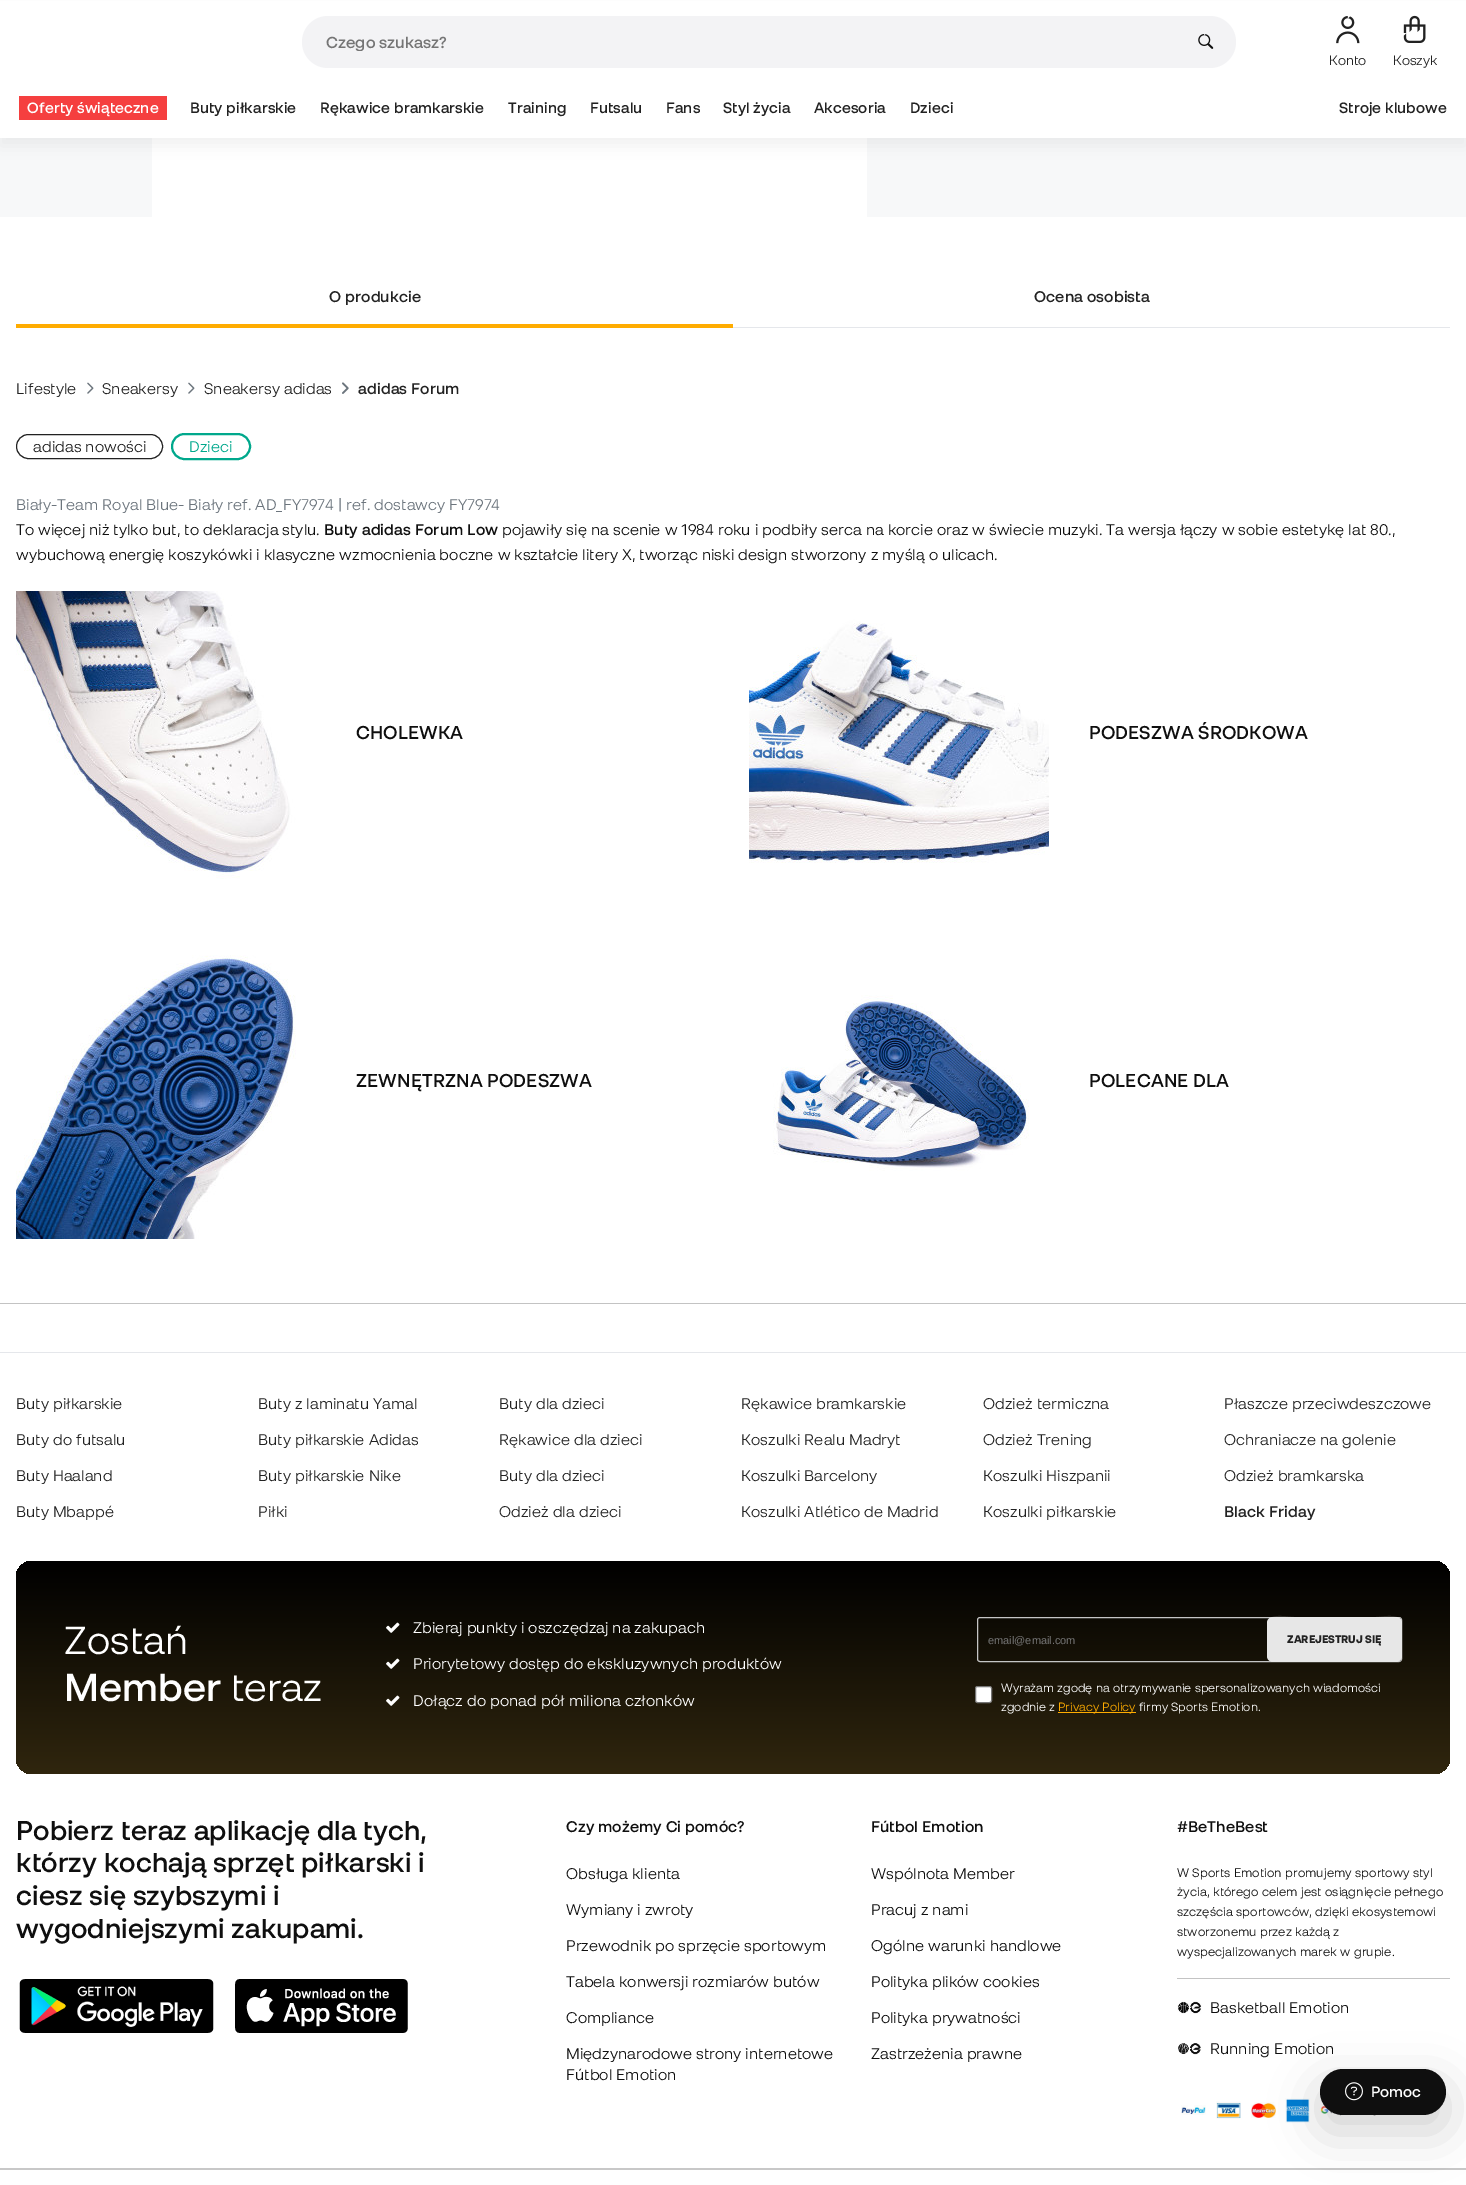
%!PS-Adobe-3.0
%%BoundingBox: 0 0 1466 2185
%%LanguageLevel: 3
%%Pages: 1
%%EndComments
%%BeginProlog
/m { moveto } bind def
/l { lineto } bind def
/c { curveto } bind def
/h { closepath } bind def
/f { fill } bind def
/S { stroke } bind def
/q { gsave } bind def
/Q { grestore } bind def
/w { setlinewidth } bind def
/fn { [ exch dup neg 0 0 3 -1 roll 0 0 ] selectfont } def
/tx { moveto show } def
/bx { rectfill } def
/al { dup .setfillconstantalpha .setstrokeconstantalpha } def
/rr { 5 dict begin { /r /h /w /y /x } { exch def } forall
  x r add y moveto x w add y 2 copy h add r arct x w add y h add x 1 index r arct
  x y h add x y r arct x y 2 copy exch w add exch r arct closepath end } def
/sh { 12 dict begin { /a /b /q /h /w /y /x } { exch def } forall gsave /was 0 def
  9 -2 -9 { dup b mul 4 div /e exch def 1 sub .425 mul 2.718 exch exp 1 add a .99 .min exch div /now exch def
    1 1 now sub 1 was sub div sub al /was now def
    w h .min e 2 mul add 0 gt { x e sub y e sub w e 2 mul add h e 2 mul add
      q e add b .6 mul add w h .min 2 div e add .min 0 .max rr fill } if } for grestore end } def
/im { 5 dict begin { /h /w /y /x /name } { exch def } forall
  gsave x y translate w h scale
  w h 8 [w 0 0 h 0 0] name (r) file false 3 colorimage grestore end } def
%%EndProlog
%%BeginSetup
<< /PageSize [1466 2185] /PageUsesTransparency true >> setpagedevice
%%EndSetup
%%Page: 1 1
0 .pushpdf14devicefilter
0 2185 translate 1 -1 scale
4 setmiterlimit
1 setgray
0 0 1466 2185 bx
0.969 0.973 0.976 setrgbcolor
0 138 1466 79 bx
(image3.raw) 152 138 715 79 im
0 setgray
0 8 1466 138 0 8 0.05 sh
1 setgray
0 1 1466 137 bx
0.953 0.953 0.961 setrgbcolor
302 16 934 52 26 rr f
q
326 33 813 18 rectclip
/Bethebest-SemiBold 16 fn
0.459 setgray
(Czego szukasz?) 326 48 tx
Q
(image0.raw) 1198 34 16 15 im
(image1.raw) 1336 16 24 28 im
/Bethebest-Regular 13.5 fn
0.133 setgray
(Konto) 1329 65 tx
(image2.raw) 1403 15 23 28 im
(Koszyk) 1393 65 tx
0.961 0.247 0.247 setrgbcolor
19 96 148 24 bx
/Bethebest-SemiBold 15 fn
1 setgray
27 113 m 0.08 0 (Oferty świąteczne) ashow
0.133 setgray
190 113 m 0.08 0 (Buty piłkarskie) ashow
320 113 m 0.08 0 (Rękawice bramkarskie) ashow
508 113 m 0.08 0 (Training) ashow
590 113 m 0.08 0 (Futsalu) ashow
666 113 m 0.08 0 (Fans) ashow
723 113 m 0.08 0 (Styl życia) ashow
814 113 m 0.08 0 (Akcesoria) ashow
910 113 m 0.08 0 (Dzieci) ashow
1339 113 m 0.08 0 (Stroje klubowe) ashow
0.898 0.906 0.922 setrgbcolor
733 327 717 1 bx
/Bethebest-SemiBold 15.52 fn
0.133 setgray
329 302 m 0.08 0 (O produkcie) ashow
1 0.675 0 setrgbcolor
16 324 717 4 bx
0.133 setgray
1034 302 m 0.08 0 (Ocena osobista) ashow
/Bethebest-Regular 15.52 fn
16 394 m 0.08 0 (Lifestyle) ashow
(image4.raw) 87 382 7 12 im
102 394 m 0.08 0 (Sneakersy) ashow
(image4.raw) 188 382 7 12 im
204 394 m 0.08 0 (Sneakersy adidas) ashow
(image5.raw) 342 382 7 12 im
/Bethebest-SemiBold 15.52 fn
358 394 m 0.08 0 (adidas Forum) ashow
16.5 434.5 146 24 12 rr S
/Bethebest-Regular 15.52 fn
33 452 m 0.08 0 (adidas nowości) ashow
0 0.659 0.549 setrgbcolor
2 w
172 434 78 25 12.5 rr S
189 452 m 0.08 0 (Dzieci) ashow
0.424 0.459 0.49 setrgbcolor
16 510 m 0.08 0 (Biały-Team Royal Blue- Biały ref. AD_FY7974 | ref. dostawcy FY7974) ashow
0.059 setgray
16 535 m 0.08 0 (To więcej niż tylko but, to deklaracja stylu.) ashow
/Bethebest-SemiBold 15.52 fn
324 535 m 0.08 0 (Buty adidas Forum Low) ashow
/Bethebest-Regular 15.52 fn
502 535 m 0.08 0 (pojawiły się na scenie w 1984 roku i podbiły serca na korcie oraz w świecie muzyki. Ta wersja łączy w sobie estetykę lat 80.,) ashow
16 560 m 0.08 0 (wybuchową energię koszykówki i klasyczne wzmocnienia boczne w kształcie litery X, tworząc niski design stworzony z myślą o ulicach.) ashow
(image6.raw) 16 591 300 300 im
/Bethebest-SemiBold 18.6 fn
356 739 m 0.08 0 (CHOLEWKA) ashow
(image7.raw) 749 591 300 300 im
1089 739 m 0.08 0 (PODESZWA ŚRODKOWA) ashow
(image8.raw) 16 939 300 300 im
356 1087 m 0.08 0 (ZEWNĘTRZNA PODESZWA) ashow
(image9.raw) 749 939 300 300 im
1089 1087 m 0.08 0 (POLECANE DLA) ashow
0.765 setgray
0 1303 1466 1 bx
(image20.raw) 1251 2102 25 16 im
(image21.raw) 1285 2098 25 25 im
(image22.raw) 1320 2105 24 11 im
(image23.raw) 1373 2115 3 1 im
0.784 setgray
0 2168 1466 2 bx
0 setgray
1320 2085 126 46 23 24 0.18 sh
0.059 setgray
1320 2069 126 46 23 rr f
(image10.raw) 1345 2082 18 19 im
/Bethebest-SemiBold 15 fn
1 setgray
(Pomoc) 1371 2097 tx
0.898 0.906 0.922 setrgbcolor
0 1352 1466 1 bx
/Bethebest-Regular 15.52 fn
0.133 setgray
16 1409 m 0.08 0 (Buty piłkarskie) ashow
258 1409 m 0.08 0 (Buty z laminatu Yamal) ashow
499 1409 m 0.08 0 (Buty dla dzieci) ashow
741 1409 m 0.08 0 (Rękawice bramkarskie) ashow
983 1409 m 0.08 0 (Odzież termiczna) ashow
1224 1409 m 0.08 0 (Płaszcze przeciwdeszczowe) ashow
16 1445 m 0.08 0 (Buty do futsalu) ashow
258 1445 m 0.08 0 (Buty piłkarskie Adidas) ashow
499 1445 m 0.08 0 (Rękawice dla dzieci) ashow
741 1445 m 0.08 0 (Koszulki Realu Madryt) ashow
983 1445 m 0.08 0 (Odzież Trening) ashow
1224 1445 m 0.08 0 (Ochraniacze na golenie) ashow
16 1481 m 0.08 0 (Buty Haaland) ashow
258 1481 m 0.08 0 (Buty piłkarskie Nike) ashow
499 1481 m 0.08 0 (Buty dla dzieci) ashow
741 1481 m 0.08 0 (Koszulki Barcelony) ashow
983 1481 m 0.08 0 (Koszulki Hiszpanii) ashow
1224 1481 m 0.08 0 (Odzież bramkarska) ashow
16 1517 m 0.08 0 (Buty Mbappé) ashow
258 1517 m 0.08 0 (Piłki) ashow
499 1517 m 0.08 0 (Odzież dla dzieci) ashow
741 1517 m 0.08 0 (Koszulki Atlético de Madrid) ashow
983 1517 m 0.08 0 (Koszulki piłkarskie) ashow
/Bethebest-SemiBold 15.52 fn
1224 1517 m 0.08 0 (Black Friday) ashow
q 16 1561 1434 213 16 rr clip newpath
<< /ShadingType 2 /ColorSpace /DeviceRGB /Coords [733 1561 733 1774] /Extend [true true] /Function << /FunctionType 2 /Domain [0 1] /C0 [0 0 0] /C1 [0.188 0.149 0.055] /N 1 >> >> shfill Q
/Bethebest-Regular 39 fn
1 setgray
64 1654 m 0.08 0 (Zostań) ashow
/Bethebest-SemiBold 39 fn
64 1701 m 0.08 0 (Member) ashow
/Bethebest-Regular 39 fn
231 1701 m 0.08 0 (teraz) ashow
(image11.raw) 386 1622 14 11 im
/Bethebest-Regular 15.52 fn
413 1633 m 0.08 0 (Zbieraj punkty i oszczędzaj na zakupach) ashow
(image12.raw) 386 1658 14 11 im
413 1669 m 0.08 0 (Priorytetowy dostęp do ekskluzywnych produktów) ashow
(image13.raw) 386 1695 14 11 im
413 1706 m 0.08 0 (Dołącz do ponad pół miliona członków) ashow
0.773 setgray
1 w
977.5 1617.5 424 44 2.5 rr S
/LiberationSans-Regular 11 fn
0.459 setgray
(email@email.com) 988 1644 tx
0 setgray
1267 1618 135 45 6 0.5 0.07 sh
0.906 setgray
1267 1617 135 45 6 rr f
0.15 al
1 setgray
1273 1618 m 1396 1618 l 1399 1618 1402 1621 1402 1624 c 1402 1612 1381 1617 1376 1617 c 1294 1617 l 1288 1617 1267 1612 1267 1624 c 1267 1621 1270 1618 1273 1618 c h f
/Bethebest-Bold 11 fn
1 al
0.133 setgray
(ZAREJESTRUJ SIĘ) 1287 1643 tx
1 setgray
975.5 1686.5 16 16 2 rr q f Q
0.463 setgray
S
/Bethebest-Regular 12 fn
1 setgray
1001 1692 m 0.08 0 (Wyrażam zgodę na otrzymywanie spersonalizowanych wiadomości) ashow
1001 1711 m 0.08 0 (zgodnie z) ashow
1 0.675 0 setrgbcolor
1058 1712 78 1 bx
1058 1711 m 0.08 0 (Privacy Policy) ashow
1 setgray
1139 1711 m 0.08 0 (firmy Sports Emotion.) ashow
/Bethebest-SemiBold 27.2 fn
0.059 setgray
16 1840 m 0.08 0 (Pobierz teraz aplikację dla tych,) ashow
16 1872 m 0.08 0 (którzy kochają sprzęt piłkarski i) ashow
16 1905 m 0.08 0 (ciesz się szybszymi i) ashow
16 1938 m 0.08 0 (wygodniejszymi zakupami.) ashow
(image14.raw) 19 1979 195 54 im
(image15.raw) 235 1979 173 54 im
/Bethebest-SemiBold 15.52 fn
566 1832 m 0.08 0 (Czy możemy Ci pomóc?) ashow
/Bethebest-Regular 15.52 fn
566 1879 m 0.08 0 (Obsługa klienta) ashow
566 1915 m 0.08 0 (Wymiany i zwroty) ashow
566 1951 m 0.08 0 (Przewodnik po sprzęcie sportowym) ashow
566 1987 m 0.08 0 (Tabela konwersji rozmiarów butów) ashow
566 2023 m 0.08 0 (Compliance) ashow
566 2059 m 0.08 0 (Międzynarodowe strony internetowe) ashow
566 2080 m 0.08 0 (Fútbol Emotion) ashow
/Bethebest-SemiBold 15.52 fn
871 1832 m 0.08 0 (Fútbol Emotion) ashow
/Bethebest-Regular 15.52 fn
871 1879 m 0.08 0 (Wspólnota Member) ashow
871 1915 m 0.08 0 (Pracuj z nami) ashow
871 1951 m 0.08 0 (Ogólne warunki handlowe) ashow
871 1987 m 0.08 0 (Polityka plików cookies) ashow
871 2023 m 0.08 0 (Polityka prywatności) ashow
871 2059 m 0.08 0 (Zastrzeżenia prawne) ashow
/Bethebest-SemiBold 15.52 fn
1177 1832 m 0.08 0 (#BeTheBest) ashow
/Bethebest-Regular 12.4 fn
1177 1877 m 0.08 0 (W Sports Emotion promujemy sportowy styl) ashow
1177 1896 m 0.08 0 (życia, którego celem jest osiągnięcie pełnego) ashow
1177 1916 m 0.08 0 (szczęścia sportowców, dzięki ekosystemowi) ashow
1177 1936 m 0.08 0 (stworzonemu przez każdą z) ashow
1177 1956 m 0.08 0 (wyspecjalizowanych marek w grupie.) ashow
0.765 setgray
1177 1978 273 1 bx
(image16.raw) 1177 2001 25 13 im
/Bethebest-Regular 15.52 fn
0.059 setgray
1210 2013 m 0.08 0 (Basketball Emotion) ashow
(image17.raw) 1178 2043 23 12 im
1210 2054 m 0.08 0 (Running Emotion) ashow
(image18.raw) 1181 2105 25 10 im
(image19.raw) 1216 2101 25 18 im
.poppdf14devicefilter showpage
%%EOF
